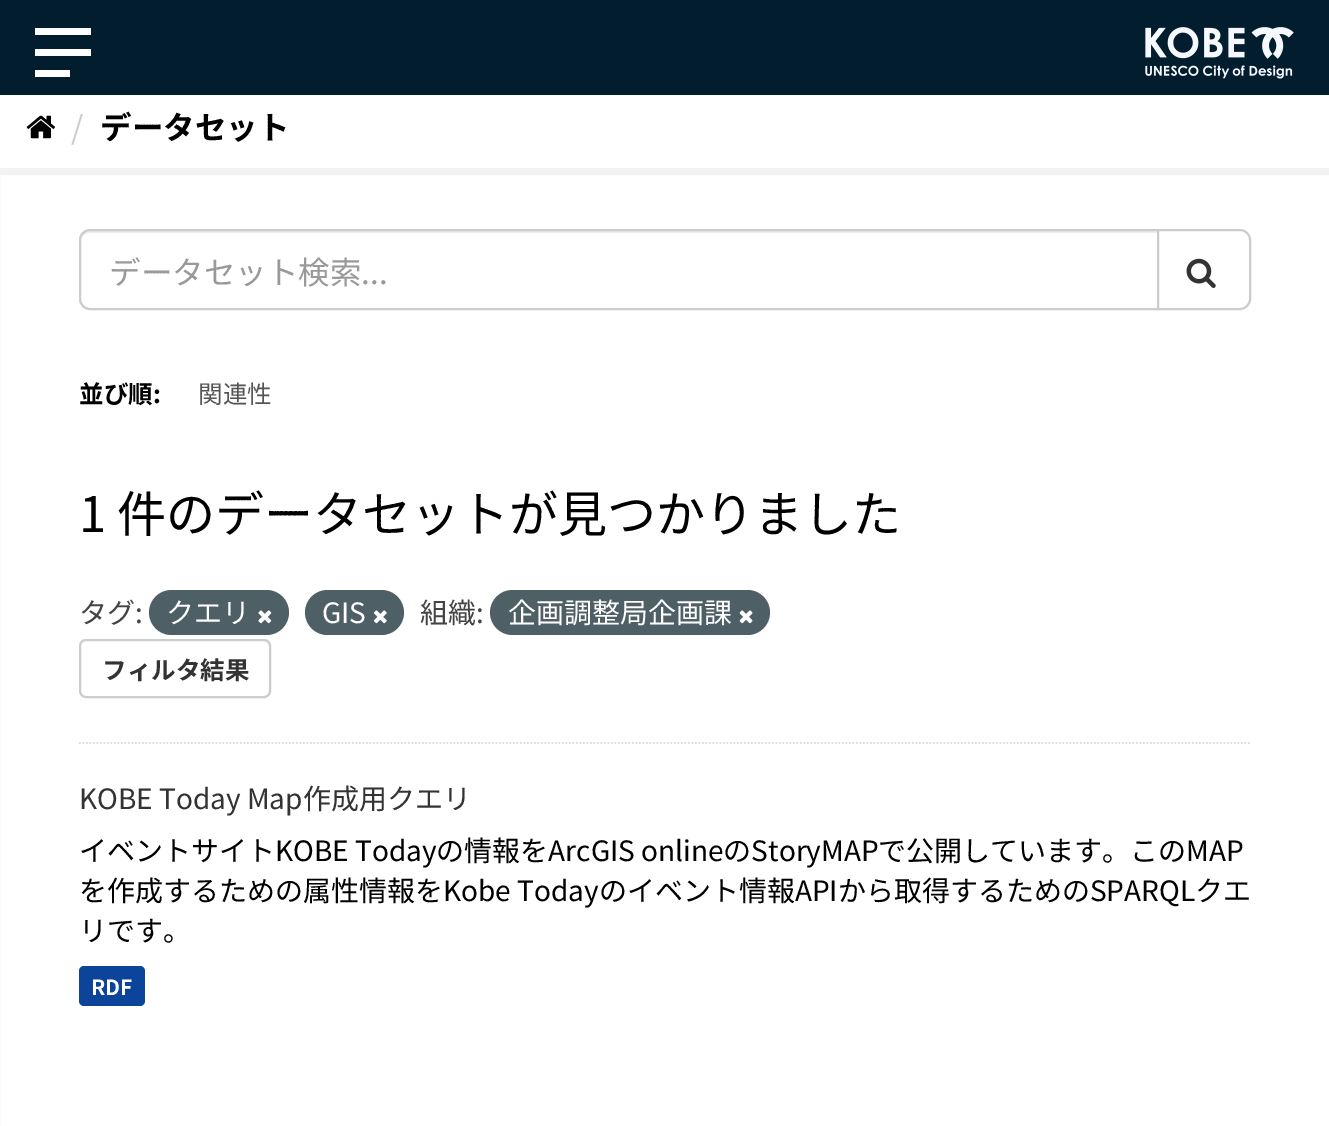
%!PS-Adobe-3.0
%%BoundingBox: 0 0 1329 1126
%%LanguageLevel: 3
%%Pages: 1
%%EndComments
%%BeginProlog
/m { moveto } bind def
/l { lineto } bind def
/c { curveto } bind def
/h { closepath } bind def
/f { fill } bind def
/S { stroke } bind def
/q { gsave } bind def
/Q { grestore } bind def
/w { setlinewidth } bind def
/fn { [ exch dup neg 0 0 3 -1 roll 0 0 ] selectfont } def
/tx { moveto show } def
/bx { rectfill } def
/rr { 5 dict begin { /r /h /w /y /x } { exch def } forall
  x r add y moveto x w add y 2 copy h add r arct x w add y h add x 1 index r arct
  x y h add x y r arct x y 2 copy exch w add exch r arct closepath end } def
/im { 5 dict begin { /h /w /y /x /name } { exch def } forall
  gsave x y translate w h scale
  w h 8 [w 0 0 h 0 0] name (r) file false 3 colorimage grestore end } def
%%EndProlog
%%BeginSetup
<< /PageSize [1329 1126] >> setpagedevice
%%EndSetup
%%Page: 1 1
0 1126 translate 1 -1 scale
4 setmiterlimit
1 setgray
0 0 1329 1126 bx
0.008 0.114 0.18 setrgbcolor
0 0 1329 95 bx
1 setgray
35 28 56 7 bx
35 49 56 7 bx
35 70 35 7 bx
(image0.raw) 1145 27 149 52 im
(image1.raw) 26 115 29 24 im
/NotoSansJP-Regular 31.5 fn
0.8 setgray
(/) 71 139 tx
/NotoSansJP-Bold 31.5 fn
0 setgray
(データセット) 100 139 tx
0.949 setgray
7 w
-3.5 171.5 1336 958 rectstroke
0.867 setgray
1.8 w
[1.75 1.75] 0 setdash
79 743 m 1251 743 l S
0.925 setgray
89 233 m 1157 233 l 1157 231 l 90 231 l 86 231 83 233 82 237 c 83 235 86 233 89 233 c h f
0.8 setgray
2 w
[] 0 setdash
90 230 m 1158 230 l 1158 309 l 90 309 l 84.5 309 80 304.5 80 299 c 80 240 l 80 234.5 84.5 230 90 230 c h S
/NotoSansJP-Regular 31.5 fn
0.6 setgray
(データセット検索...) 109 284 tx
1 setgray
1158 230 m 1240 230 l 1245.5 230 1250 234.5 1250 240 c 1250 299 l 1250 304.5 1245.5 309 1240 309 c 1158 309 l h q f Q
0.8 setgray
S
(image2.raw) 1186 258 30 30 im
/NotoSansJP-Bold 24.5 fn
0 setgray
(並び順:) 79 403 tx
/NotoSansJP-Regular 24.5 fn
0.333 setgray
(関連性) 198 403 tx
/NotoSansJP-Regular 49 fn
0 setgray
(1 件のデータセットが見つかりました) 79 532 tx
/NotoSansJP-Regular 28 fn
0.267 setgray
(タグ:) 79 623 tx
0.306 0.373 0.396 setrgbcolor
149 590 140 45 22.5 rr f
1 setgray
(クエリ) 166 623 tx
(image3.raw) 258 610 14 14 im
0.306 0.373 0.396 setrgbcolor
305 590 99 45 22.5 rr f
1 setgray
(GIS) 322 623 tx
(image4.raw) 373 610 14 14 im
0.267 setgray
(組織:) 420 623 tx
0.306 0.373 0.396 setrgbcolor
490 590 280 45 22.5 rr f
1 setgray
(企画調整局企画課) 508 623 tx
(image5.raw) 739 610 14 14 im
0.8 setgray
80 640 190 57 6 rr S
/NotoSansJP-Bold 24.5 fn
0.2 setgray
(フィルタ結果) 102 679 tx
/NotoSansJP-Regular 28 fn
(KOBE Today Map作成用クエリ) 79 809 tx
0 setgray
(イベントサイトKOBE Todayの情報をArcGIS onlineのStoryMAPで公開しています。このMAP) 79 861 tx
(を作成するための属性情報をKobe Todayのイベント情報APIから取得するためのSPARQLクエ) 79 901 tx
(リです。) 79 941 tx
0.043 0.267 0.596 setrgbcolor
79 966 66 40 5 rr f
/NotoSansJP-Bold 21 fn
1 setgray
(RDF) 91 995 tx
showpage
%%EOF
